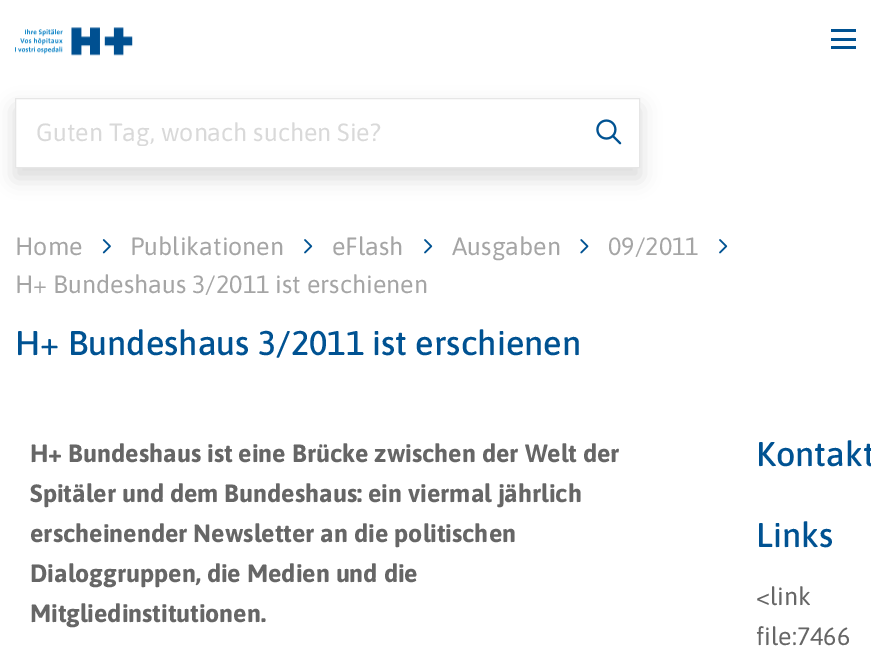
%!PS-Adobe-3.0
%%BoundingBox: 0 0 871 651
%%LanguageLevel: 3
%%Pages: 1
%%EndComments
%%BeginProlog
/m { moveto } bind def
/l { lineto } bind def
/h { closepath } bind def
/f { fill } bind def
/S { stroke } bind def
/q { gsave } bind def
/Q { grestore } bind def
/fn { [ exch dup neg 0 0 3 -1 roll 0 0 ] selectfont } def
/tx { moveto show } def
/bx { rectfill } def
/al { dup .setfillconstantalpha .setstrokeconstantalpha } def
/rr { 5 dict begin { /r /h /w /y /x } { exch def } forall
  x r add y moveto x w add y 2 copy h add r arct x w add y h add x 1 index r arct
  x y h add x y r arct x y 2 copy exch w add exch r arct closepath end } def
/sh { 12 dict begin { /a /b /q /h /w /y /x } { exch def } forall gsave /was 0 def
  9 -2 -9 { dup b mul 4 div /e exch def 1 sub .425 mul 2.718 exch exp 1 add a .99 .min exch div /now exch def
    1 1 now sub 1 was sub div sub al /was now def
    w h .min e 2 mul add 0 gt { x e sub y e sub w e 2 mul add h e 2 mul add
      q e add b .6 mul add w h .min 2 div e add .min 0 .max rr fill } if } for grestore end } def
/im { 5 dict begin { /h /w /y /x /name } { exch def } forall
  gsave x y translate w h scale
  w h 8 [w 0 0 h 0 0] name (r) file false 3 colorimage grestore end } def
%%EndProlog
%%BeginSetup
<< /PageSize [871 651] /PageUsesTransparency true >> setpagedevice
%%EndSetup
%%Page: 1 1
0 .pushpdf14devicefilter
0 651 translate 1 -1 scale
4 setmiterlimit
1 setgray
0 0 871 651 bx
(image0.raw) 15 27 118 29 im
0 0.322 0.573 setrgbcolor
831 29 25 3 bx
831 38 25 3 bx
831 46 25 3 bx
0.039 setgray
15 108 625 70 0 10 0.15 sh
1 setgray
15.5 98.5 m 639.5 98.5 l 639.5 167.5 l 15.5 167.5 l h q f Q
0.902 setgray
S
q
36 118 543 28 rectclip
/Asap-Regular 25 fn
0.851 setgray
(Guten Tag, wonach suchen Sie?) 36 141 tx
Q
(image1.raw) 596 119 26 26 im
/Asap-Regular 25 fn
0.647 setgray
(Home) 15 255 tx
(image2.raw) 102 239 9 15 im
(Publikationen) 130 255 tx
(image3.raw) 304 239 9 15 im
(eFlash) 332 255 tx
(image3.raw) 424 239 9 15 im
(Ausgaben) 452 255 tx
(image4.raw) 580 239 9 15 im
(09/2011) 608 255 tx
(image3.raw) 719 239 9 15 im
(H+ Bundeshaus 3/2011 ist erschienen) 15 293 tx
/Asap-Medium 34.3 fn
0 0.322 0.573 setrgbcolor
(H+ Bundeshaus 3/2011 ist erschienen) 15 355 tx
/Asap-Bold 25 fn
0.4 setgray
(H+ Bundeshaus ist eine Brücke zwischen der Welt der) 30 462 tx
(Spitäler und dem Bundeshaus: ein viermal jährlich) 30 502 tx
(erscheinender Newsletter an die politischen) 30 542 tx
(Dialoggruppen, die Medien und die) 30 582 tx
(Mitgliedinstitutionen.) 30 622 tx
/Asap-Medium 34.3 fn
0 0.322 0.573 setrgbcolor
(Kontakt) 756 466 tx
(Links) 756 547 tx
/Asap-Regular 25 fn
0.4 setgray
(<link) 756 605 tx
(file:7466) 756 645 tx
.poppdf14devicefilter showpage
%%EOF
